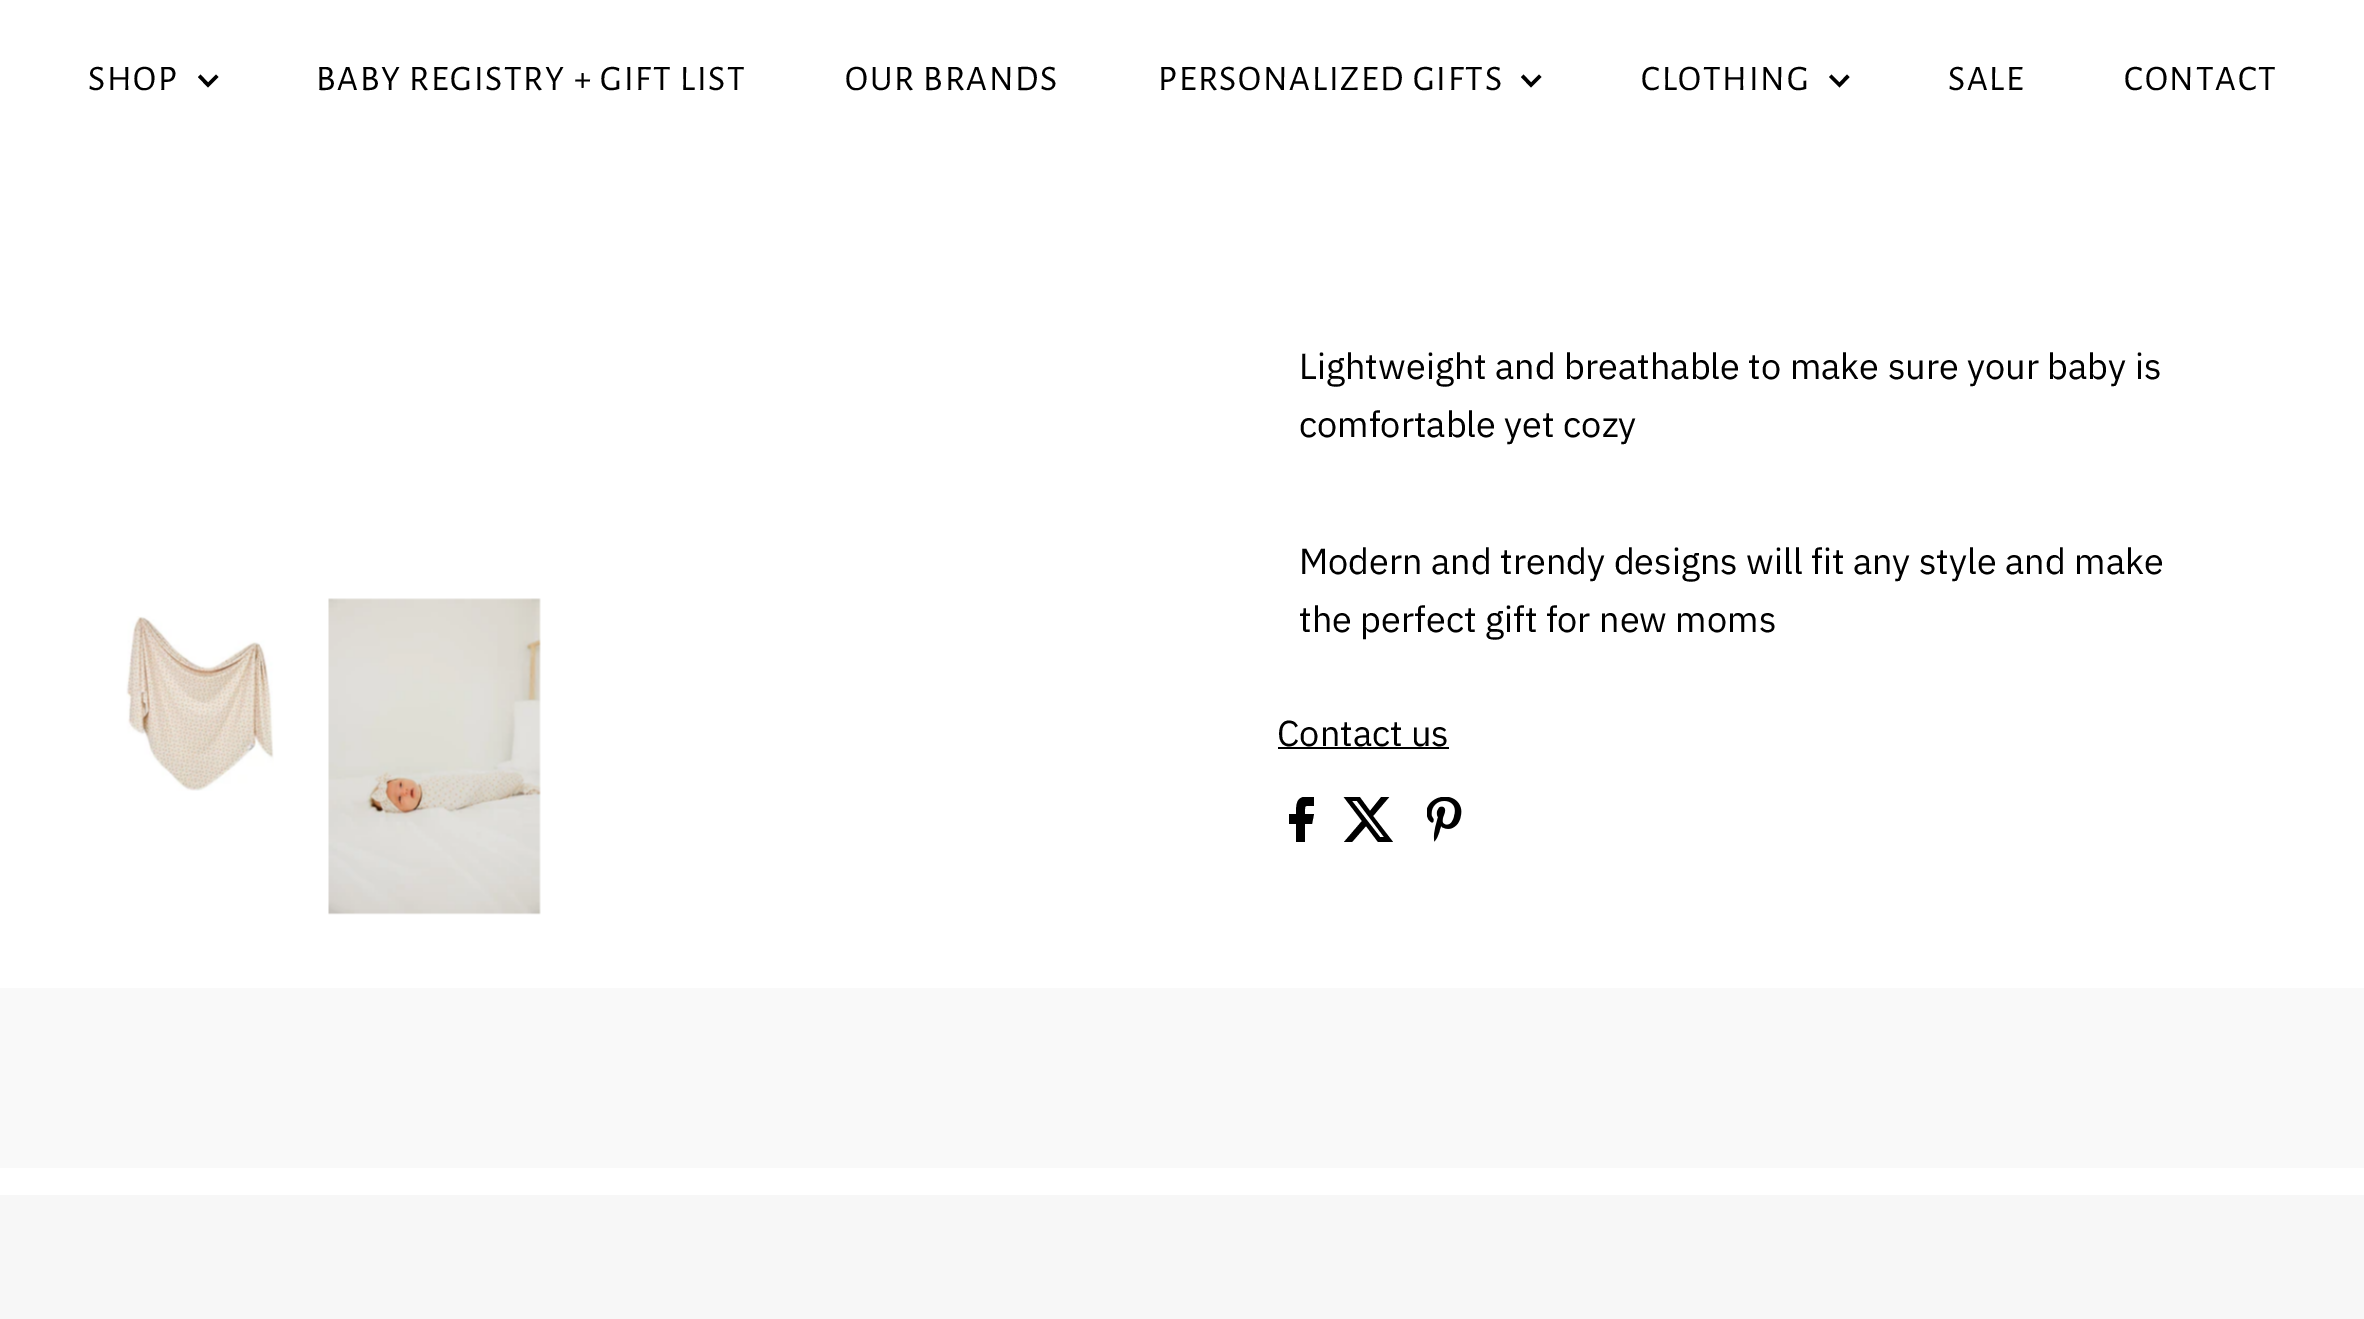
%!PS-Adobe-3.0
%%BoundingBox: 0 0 2364 1319
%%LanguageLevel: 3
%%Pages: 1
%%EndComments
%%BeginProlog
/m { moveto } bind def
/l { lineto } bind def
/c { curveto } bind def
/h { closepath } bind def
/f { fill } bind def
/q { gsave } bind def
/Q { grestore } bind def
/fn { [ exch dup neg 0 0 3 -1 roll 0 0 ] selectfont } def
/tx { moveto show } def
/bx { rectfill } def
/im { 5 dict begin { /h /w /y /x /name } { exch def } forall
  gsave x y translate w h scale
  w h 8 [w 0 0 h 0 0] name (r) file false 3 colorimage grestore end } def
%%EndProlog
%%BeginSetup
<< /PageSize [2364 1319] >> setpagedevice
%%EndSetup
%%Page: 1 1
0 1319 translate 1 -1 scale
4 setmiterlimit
1 setgray
0 0 2364 1319 bx
/AlegreyaSans-Regular 36 fn
0 setgray
88 90 m 1.8 0 (SHOP) ashow
216 74.5 m 208 82.5 l 200.5 74.5 l 198 77 l 208 87.5 l 218.5 77 l h f
316 90 m 1.8 0 (BABY REGISTRY + GIFT LIST) ashow
845 90 m 1.8 0 (OUR BRANDS) ashow
1158 90 m 1.8 0 (PERSONALIZED GIFTS) ashow
1539 74.5 m 1531 82.5 l 1523.5 74.5 l 1521 77 l 1531 87.5 l 1541.5 77 l h f
1641 90 m 1.8 0 (CLOTHING) ashow
1847 74.5 m 1839.5 82.5 l 1831.5 74.5 l 1829 77 l 1839.5 87.5 l 1849.5 77 l h f
1948 90 m 1.8 0 (SALE) ashow
2124 90 m 1.8 0 (CONTACT) ashow
(image0.raw) 126 616 148 175 im
(image1.raw) 328 598 213 317 im
/IBMPlexSans-Regular 36 fn
(Lightweight and breathable to make sure your baby is) 1299 379 tx
(comfortable yet cozy) 1299 437 tx
(Modern and trendy designs will fit any style and make) 1299 574 tx
(the perfect gift for new moms) 1299 632 tx
(Contact us) 1277 746 tx
1278 747 171 2 bx
q
1289 797 25 45 rectclip
1314 796 m 1298 796 1296 799 1296 814 c 1289 814 l 1289 824 l 1296 824 l 1296 842 l 1305 842 l 1305 824 l 1312 824 l 1314 814 l 1305 814 l 1305 804 1304 806 1314 806 c h f
Q
q
1343 797 52 45 rectclip
1382 796 m 1390 796 l 1373 816 l 1393 842 l 1378 842 l 1366 826 l 1352 842 l 1344 842 l 1362 821 l 1343 796 l 1359 796 l 1370 811 l h 1380 837 m 1384 837 l 1357 801 l 1352 801 l h f
Q
(image2.raw) 1427 797 35 45 im
0.976 setgray
0 988 2364 180 bx
0.969 setgray
0 1195 2364 124 bx
showpage
%%EOF
